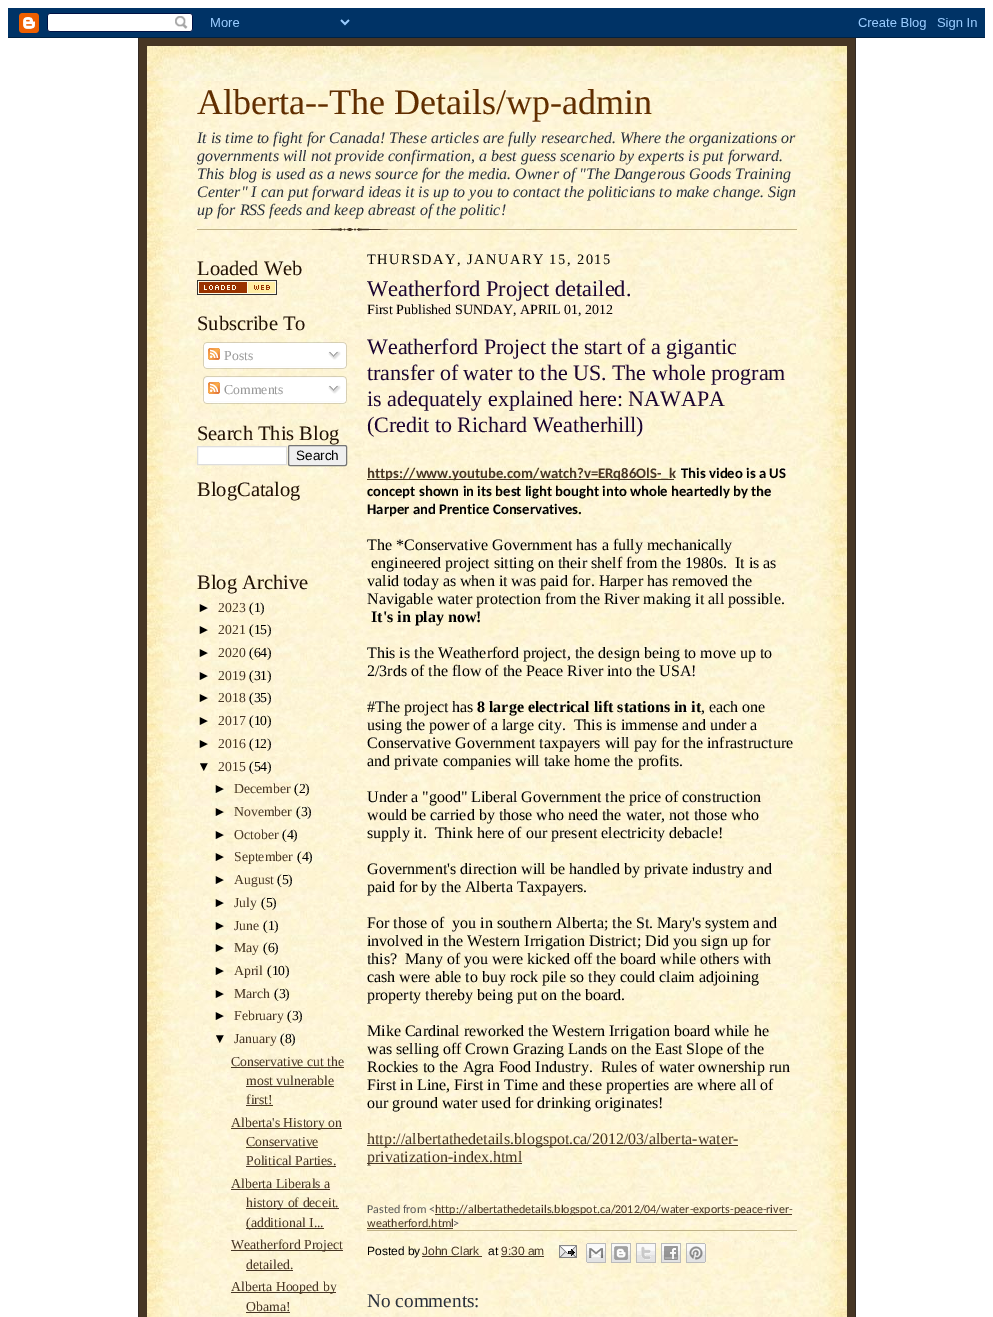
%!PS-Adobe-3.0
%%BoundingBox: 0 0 993 1317
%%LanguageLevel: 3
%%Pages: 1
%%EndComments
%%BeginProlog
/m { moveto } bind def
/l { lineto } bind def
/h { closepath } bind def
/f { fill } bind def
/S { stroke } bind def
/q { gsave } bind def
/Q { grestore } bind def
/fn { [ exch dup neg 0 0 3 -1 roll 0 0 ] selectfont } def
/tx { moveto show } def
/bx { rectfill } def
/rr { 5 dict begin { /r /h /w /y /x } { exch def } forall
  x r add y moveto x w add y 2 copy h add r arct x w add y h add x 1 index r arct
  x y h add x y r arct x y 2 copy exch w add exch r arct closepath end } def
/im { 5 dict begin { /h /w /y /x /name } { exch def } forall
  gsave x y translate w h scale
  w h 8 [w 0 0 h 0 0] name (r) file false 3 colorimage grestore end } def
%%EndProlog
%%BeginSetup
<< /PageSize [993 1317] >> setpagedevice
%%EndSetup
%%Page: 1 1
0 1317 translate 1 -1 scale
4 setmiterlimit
1 setgray
0 0 993 1317 bx
(image0.raw) 8 8 977 30 im
0.278 0.212 0.141 setrgbcolor
139 38 716 1279 bx
0.2 0.165 0.141 setrgbcolor
855 38 1 1279 bx
138 38 1 1279 bx
(image1.raw) 147 46 700 35 im
(image2.raw) 147 81 700 1236 im
(image3.raw) 197 228 600 3 im
/LiberationSerif-Regular 36 fn
0.38 0.18 0 setrgbcolor
(Alberta--The Details/wp-admin) 197 114 tx
/LiberationSerif-Italic 16 fn
0.161 0.188 0.231 setrgbcolor
(It is time to fight for Canada! These articles are fully researched. Where the organizations or) 197 143 tx
(governments will not provide confirmation, a best guess scenario by experts is put forward.) 197 161 tx
(This blog is used as a news source for the media. Owner of "The Dangerous Goods Training) 197 179 tx
(Center" I can put forward ideas it is up to you to contact the politicians to make change. Sign) 197 197 tx
(up for RSS feeds and keep abreast of the politic!) 197 215 tx
/LiberationSerif-Regular 20.5 fn
0.129 0.067 0.016 setrgbcolor
(Loaded Web) 197 275 tx
(image4.raw) 197 280 80 15 im
(Subscribe To) 197 330 tx
(image5.raw) 203 342 144 24 im
(image6.raw) 208 348 12 12 im
/LiberationSerif-Regular 13.75 fn
0.6 setgray
(Posts) 224 360 tx
(image7.raw) 328 351 13 9 im
(image8.raw) 203 366 144 3 im
(image9.raw) 203 376 144 25 im
(image6.raw) 208 382 12 12 im
(Comments) 224 394 tx
(image7.raw) 328 385 13 9 im
(image10.raw) 203 401 144 3 im
/LiberationSerif-Regular 20.5 fn
0.129 0.067 0.016 setrgbcolor
(Search This Blog) 197 440 tx
1 setgray
197.5 446.5 m 286.5 446.5 l 286.5 464.5 l 197.5 464.5 l h q f Q
0.867 setgray
S
0.937 setgray
288.5 445.5 58 20 1.5 rr q f Q
0.463 setgray
S
/LiberationSans-Regular 13.5 fn
0 setgray
(Search) 296 460 tx
/LiberationSerif-Regular 20.5 fn
0.129 0.067 0.016 setrgbcolor
(BlogCatalog) 197 496 tx
(Blog Archive) 197 589 tx
/LiberationSans-Regular 13.75 fn
0 setgray
(►) 197 612 tx
/LiberationSerif-Regular 13.75 fn
0.278 0.212 0.141 setrgbcolor
(2023) 218 612 tx
0 setgray
(\(1\)) 249 612 tx
/LiberationSans-Regular 13.75 fn
(►) 197 634 tx
/LiberationSerif-Regular 13.75 fn
0.278 0.212 0.141 setrgbcolor
(2021) 218 634 tx
0 setgray
(\(15\)) 249 634 tx
/LiberationSans-Regular 13.75 fn
(►) 197 657 tx
/LiberationSerif-Regular 13.75 fn
0.278 0.212 0.141 setrgbcolor
(2020) 218 657 tx
0 setgray
(\(64\)) 249 657 tx
/LiberationSans-Regular 13.75 fn
(►) 197 680 tx
/LiberationSerif-Regular 13.75 fn
0.278 0.212 0.141 setrgbcolor
(2019) 218 680 tx
0 setgray
(\(31\)) 249 680 tx
/LiberationSans-Regular 13.75 fn
(►) 197 702 tx
/LiberationSerif-Regular 13.75 fn
0.278 0.212 0.141 setrgbcolor
(2018) 218 702 tx
0 setgray
(\(35\)) 249 702 tx
/LiberationSans-Regular 13.75 fn
(►) 197 725 tx
/LiberationSerif-Regular 13.75 fn
0.278 0.212 0.141 setrgbcolor
(2017) 218 725 tx
0 setgray
(\(10\)) 249 725 tx
/LiberationSans-Regular 13.75 fn
(►) 197 748 tx
/LiberationSerif-Regular 13.75 fn
0.278 0.212 0.141 setrgbcolor
(2016) 218 748 tx
0 setgray
(\(12\)) 249 748 tx
/LiberationSans-Regular 13.75 fn
(▼) 197 771 tx
/LiberationSerif-Regular 13.75 fn
0.278 0.212 0.141 setrgbcolor
(2015) 218 771 tx
0 setgray
(\(54\)) 249 771 tx
/LiberationSans-Regular 13.75 fn
(►) 213 793 tx
/LiberationSerif-Regular 13.75 fn
0.278 0.212 0.141 setrgbcolor
(December) 234 793 tx
0 setgray
(\(2\)) 294 793 tx
/LiberationSans-Regular 13.75 fn
(►) 213 816 tx
/LiberationSerif-Regular 13.75 fn
0.278 0.212 0.141 setrgbcolor
(November) 234 816 tx
0 setgray
(\(3\)) 296 816 tx
/LiberationSans-Regular 13.75 fn
(►) 213 839 tx
/LiberationSerif-Regular 13.75 fn
0.278 0.212 0.141 setrgbcolor
(October) 234 839 tx
0 setgray
(\(4\)) 282 839 tx
/LiberationSans-Regular 13.75 fn
(►) 213 861 tx
/LiberationSerif-Regular 13.75 fn
0.278 0.212 0.141 setrgbcolor
(September) 234 861 tx
0 setgray
(\(4\)) 297 861 tx
/LiberationSans-Regular 13.75 fn
(►) 213 884 tx
/LiberationSerif-Regular 13.75 fn
0.278 0.212 0.141 setrgbcolor
(August) 234 884 tx
0 setgray
(\(5\)) 277 884 tx
/LiberationSans-Regular 13.75 fn
(►) 213 907 tx
/LiberationSerif-Regular 13.75 fn
0.278 0.212 0.141 setrgbcolor
(July) 234 907 tx
0 setgray
(\(5\)) 261 907 tx
/LiberationSans-Regular 13.75 fn
(►) 213 930 tx
/LiberationSerif-Regular 13.75 fn
0.278 0.212 0.141 setrgbcolor
(June) 234 930 tx
0 setgray
(\(1\)) 263 930 tx
/LiberationSans-Regular 13.75 fn
(►) 213 952 tx
/LiberationSerif-Regular 13.75 fn
0.278 0.212 0.141 setrgbcolor
(May) 234 952 tx
0 setgray
(\(6\)) 263 952 tx
/LiberationSans-Regular 13.75 fn
(►) 213 975 tx
/LiberationSerif-Regular 13.75 fn
0.278 0.212 0.141 setrgbcolor
(April) 234 975 tx
0 setgray
(\(10\)) 267 975 tx
/LiberationSans-Regular 13.75 fn
(►) 213 998 tx
/LiberationSerif-Regular 13.75 fn
0.278 0.212 0.141 setrgbcolor
(March) 234 998 tx
0 setgray
(\(3\)) 274 998 tx
/LiberationSans-Regular 13.75 fn
(►) 213 1020 tx
/LiberationSerif-Regular 13.75 fn
0.278 0.212 0.141 setrgbcolor
(February) 234 1020 tx
0 setgray
(\(3\)) 287 1020 tx
/LiberationSans-Regular 13.75 fn
(▼) 213 1043 tx
/LiberationSerif-Regular 13.75 fn
0.278 0.212 0.141 setrgbcolor
(January) 234 1043 tx
0 setgray
(\(8\)) 280 1043 tx
0.278 0.212 0.141 setrgbcolor
(Conservative cut the) 231 1066 tx
231 1067 113 1 bx
(most vulnerable) 246 1085 tx
246 1086 88 1 bx
(first!) 246 1104 tx
246 1105 27 1 bx
231 1128 111 1 bx
(Alberta's History on) 231 1127 tx
(Conservative) 246 1146 tx
246 1147 72 1 bx
(Political Parties.) 246 1165 tx
246 1166 90 1 bx
(Alberta Liberals a) 231 1188 tx
231 1189 99 1 bx
246 1208 93 1 bx
(history of deceit.) 246 1207 tx
246 1228 78 1 bx
(\(additional I...) 246 1227 tx
231 1250 112 1 bx
(Weatherford Project) 231 1249 tx
(detailed.) 246 1269 tx
246 1270 47 1 bx
231 1292 105 1 bx
(Alberta Hooped by) 231 1291 tx
(Obama!) 246 1311 tx
246 1312 44 1 bx
q
367 243 430 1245 rectclip
/LiberationSerif-Regular 14.4 fn
0 setgray
367 264 m 1.45 0 (THURSDAY, JANUARY 15, 2015) ashow
Q
/LiberationSerif-Regular 22.4 fn
0.106 0.016 0.192 setrgbcolor
(Weatherford Project detailed.) 367 296 tx
1 0.953 0.859 setrgbcolor
367 302 253 15 bx
/LiberationSerif-Regular 14 fn
0 setgray
(First Published SUNDAY, APRIL 01, 2012) 367 314 tx
/LiberationSerif-Regular 22 fn
0.106 0.016 0.192 setrgbcolor
(Weatherford Project the start of a gigantic) 367 354 tx
(transfer of water to the US. The whole program) 367 380 tx
(is adequately explained here: NAWAPA) 367 406 tx
(\(Credit to Richard Weatherhill\)) 367 432 tx
0.278 0.212 0.141 setrgbcolor
367 479 307 1 bx
/Carlito-Bold 14.7 fn
(https://www.youtube.com/watch?v=ERq86OlS-_k) 367 478 tx
0 setgray
(This video is a US) 681 478 tx
(concept shown in its best light bought into whole heartedly by the) 367 496 tx
(Harper and Prentice Conservatives.) 367 514 tx
q
367 243 430 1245 rectclip
/LiberationSerif-Regular 16 fn
(The *Conservative Government has a fully mechanically) 367 550 tx
Q
/LiberationSerif-Regular 16 fn
(engineered project sitting on their shelf from the 1980s.  It is as) 371 568 tx
(valid today as when it was paid for. Harper has removed the) 367 586 tx
(Navigable water protection from the River making it all possible.) 367 604 tx
/LiberationSerif-Bold 16 fn
(It's in play now!) 371 622 tx
q
367 243 430 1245 rectclip
/LiberationSerif-Regular 16 fn
(This is the Weatherford project, the design being to move up to) 367 658 tx
Q
/LiberationSerif-Regular 16 fn
(2/3rds of the flow of the Peace River into the USA!) 367 676 tx
(#The project has) 367 712 tx
/LiberationSerif-Bold 16 fn
(8 large electrical lift stations in it) 477 712 tx
/LiberationSerif-Regular 16 fn
(, each one) 701 712 tx
(using the power of a large city.  This is immense and under a) 367 730 tx
(Conservative Government taxpayers will pay for the infrastructure) 367 748 tx
(and private companies will take home the profits.) 367 766 tx
(Under a "good" Liberal Government the price of construction) 367 802 tx
(would be carried by those who need the water, not those who) 367 820 tx
(supply it.  Think here of our present electricity debacle!) 367 838 tx
(Government's direction will be handled by private industry and) 367 874 tx
(paid for by the Alberta Taxpayers.) 367 892 tx
(For those of  you in southern Alberta; the St. Mary's system and) 367 928 tx
(involved in the Western Irrigation District; Did you sign up for) 367 946 tx
(this?  Many of you were kicked off the board while others with) 367 964 tx
(cash were able to buy rock pile so they could claim adjoining) 367 982 tx
(property thereby being put on the board.) 367 1000 tx
(Mike Cardinal reworked the Western Irrigation board while he) 367 1036 tx
(was selling off Crown Grazing Lands on the East Slope of the) 367 1054 tx
(Rockies to the Agra Food Industry.  Rules of water ownership run) 367 1072 tx
(First in Line, First in Time and these properties are where all of) 367 1090 tx
(our ground water used for drinking originates!) 367 1108 tx
0.278 0.212 0.141 setrgbcolor
367 1145 371 1 bx
(http://albertathedetails.blogspot.ca/2012/03/alberta-water-) 367 1144 tx
367 1163 155 1 bx
(privatization-index.html) 367 1162 tx
/Carlito-Regular 12 fn
0.349 setgray
(Pasted from <) 367 1213 tx
0.278 0.212 0.141 setrgbcolor
435 1214 357 1 bx
(http://albertathedetails.blogspot.ca/2012/04/water-exports-peace-river-) 435 1213 tx
(weatherford.html) 367 1227 tx
367 1228 86 1 bx
0.349 setgray
(>) 453 1227 tx
0.749 0.694 0.525 setrgbcolor
367 1230 430 1 bx
/LiberationSans-Regular 12 fn
0 setgray
(Posted by) 367 1255 tx
0.278 0.212 0.141 setrgbcolor
422 1256 60 1 bx
(John Clark) 422 1255 tx
0 setgray
(at) 488 1255 tx
0.278 0.212 0.141 setrgbcolor
(9:30 am) 501 1255 tx
501 1256 43 1 bx
(image11.raw) 559 1245 18 13 im
(image12.raw) 586 1243 20 20 im
(image13.raw) 611 1243 20 20 im
(image14.raw) 636 1243 20 20 im
(image15.raw) 661 1243 20 20 im
(image16.raw) 686 1243 20 20 im
/LiberationSerif-Regular 19.25 fn
0.161 0.188 0.231 setrgbcolor
(No comments:) 367 1307 tx
showpage
%%EOF
